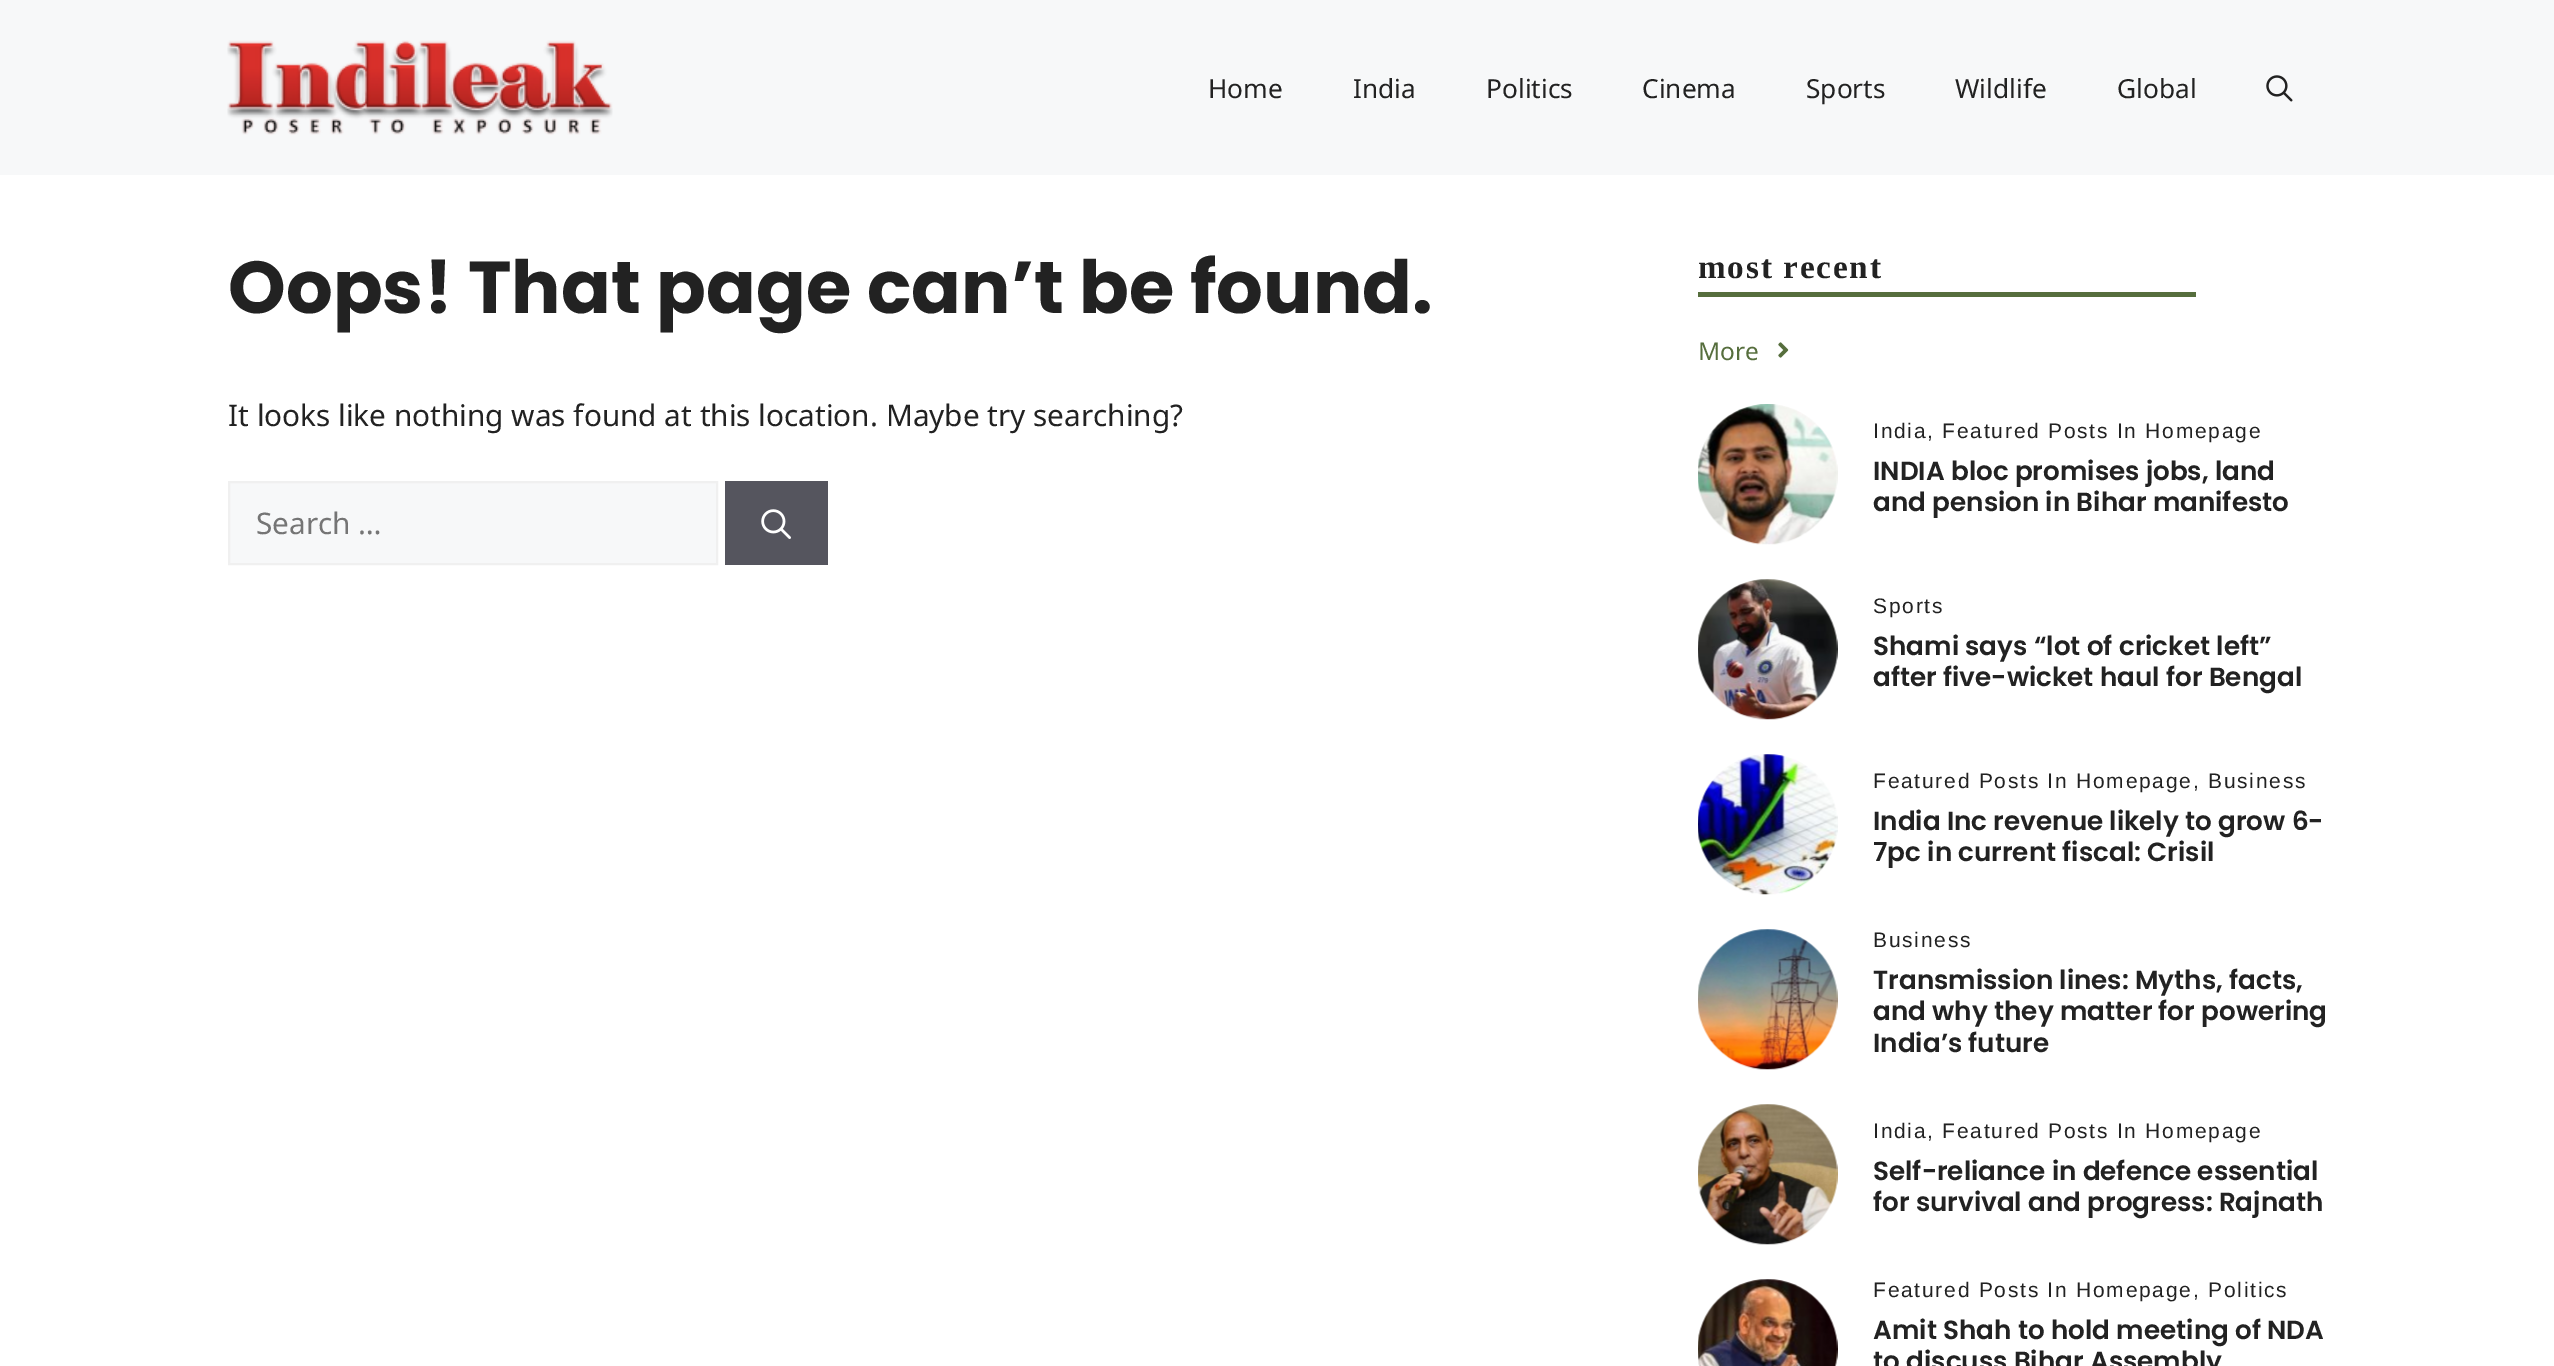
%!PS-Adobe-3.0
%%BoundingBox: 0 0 2554 1366
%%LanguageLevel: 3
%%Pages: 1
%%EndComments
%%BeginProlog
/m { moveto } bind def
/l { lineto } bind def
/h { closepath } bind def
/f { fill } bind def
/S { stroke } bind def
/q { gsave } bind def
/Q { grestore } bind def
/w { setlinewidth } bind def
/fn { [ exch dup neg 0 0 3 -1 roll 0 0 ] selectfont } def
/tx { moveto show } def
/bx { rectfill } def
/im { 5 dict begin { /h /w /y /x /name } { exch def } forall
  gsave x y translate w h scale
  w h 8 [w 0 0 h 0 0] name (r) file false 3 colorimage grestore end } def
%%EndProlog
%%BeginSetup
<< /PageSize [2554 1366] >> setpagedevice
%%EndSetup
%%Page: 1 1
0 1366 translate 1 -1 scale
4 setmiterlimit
1 setgray
0 0 2554 1366 bx
0.969 0.973 0.976 setrgbcolor
0 0 2554 175 bx
(image0.raw) 227 40 386 95 im
/NotoSans-Regular 26.25 fn
0.133 setgray
(Home) 1208 98 tx
(India) 1353 98 tx
(Politics) 1486 98 tx
(Cinema) 1642 98 tx
(Sports) 1806 98 tx
(Wildlife) 1955 98 tx
(Global) 2117 98 tx
(image1.raw) 2266 75 27 27 im
/Poppins-Bold 73.5 fn
(Oops! That page can’t be found.) 228 313 tx
/NotoSans-Regular 29.75 fn
(It looks like nothing was found at this location. Maybe try searching?) 228 426 tx
0.969 0.973 0.976 setrgbcolor
229 482 m 717 482 l 717 564 l 229 564 l h q f Q
0.941 setgray
2 w
S
0.459 setgray
(Search …) 256 534 tx
0.333 0.333 0.369 setrgbcolor
725 481 103 84 bx
(image2.raw) 761 509 30 30 im
/LiberationSerif-Bold 33.25 fn
0.133 setgray
1698 278 m 1.75 0 (most recent) ashow
0.337 0.431 0.239 setrgbcolor
1698 292 498 5 bx
/NotoSans-Regular 24.5 fn
(More) 1698 360 tx
(image3.raw) 1778 342 11 16 im
(image4.raw) 1698 404 140 141 im
/LiberationSans-Regular 21 fn
0.133 setgray
1873 438 m 1.75 0 (India, Featured Posts In Homepage) ashow
/Poppins-SemiBold 26.25 fn
(INDIA bloc promises jobs, land) 1873 480 tx
(and pension in Bihar manifesto) 1873 511 tx
(image5.raw) 1698 579 140 141 im
/LiberationSans-Regular 21 fn
1873 613 m 1.75 0 (Sports) ashow
/Poppins-SemiBold 26.25 fn
(Shami says “lot of cricket left”) 1873 655 tx
(after five-wicket haul for Bengal) 1873 686 tx
(image6.raw) 1698 754 140 141 im
/LiberationSans-Regular 21 fn
1873 788 m 1.75 0 (Featured Posts In Homepage, Business) ashow
/Poppins-SemiBold 26.25 fn
(India Inc revenue likely to grow 6-) 1873 830 tx
(7pc in current fiscal: Crisil) 1873 861 tx
(image7.raw) 1698 929 140 141 im
/LiberationSans-Regular 21 fn
1873 947 m 1.75 0 (Business) ashow
/Poppins-SemiBold 26.25 fn
(Transmission lines: Myths, facts,) 1873 989 tx
(and why they matter for powering) 1873 1020 tx
(India’s future) 1873 1052 tx
(image8.raw) 1698 1104 140 141 im
/LiberationSans-Regular 21 fn
1873 1138 m 1.75 0 (India, Featured Posts In Homepage) ashow
/Poppins-SemiBold 26.25 fn
(Self-reliance in defence essential) 1873 1180 tx
(for survival and progress: Rajnath) 1873 1211 tx
(image9.raw) 1698 1279 140 87 im
/LiberationSans-Regular 21 fn
1873 1297 m 1.75 0 (Featured Posts In Homepage, Politics) ashow
/Poppins-SemiBold 26.25 fn
(Amit Shah to hold meeting of NDA) 1873 1339 tx
(to discuss Bihar Assembly) 1873 1370 tx
showpage
%%EOF
